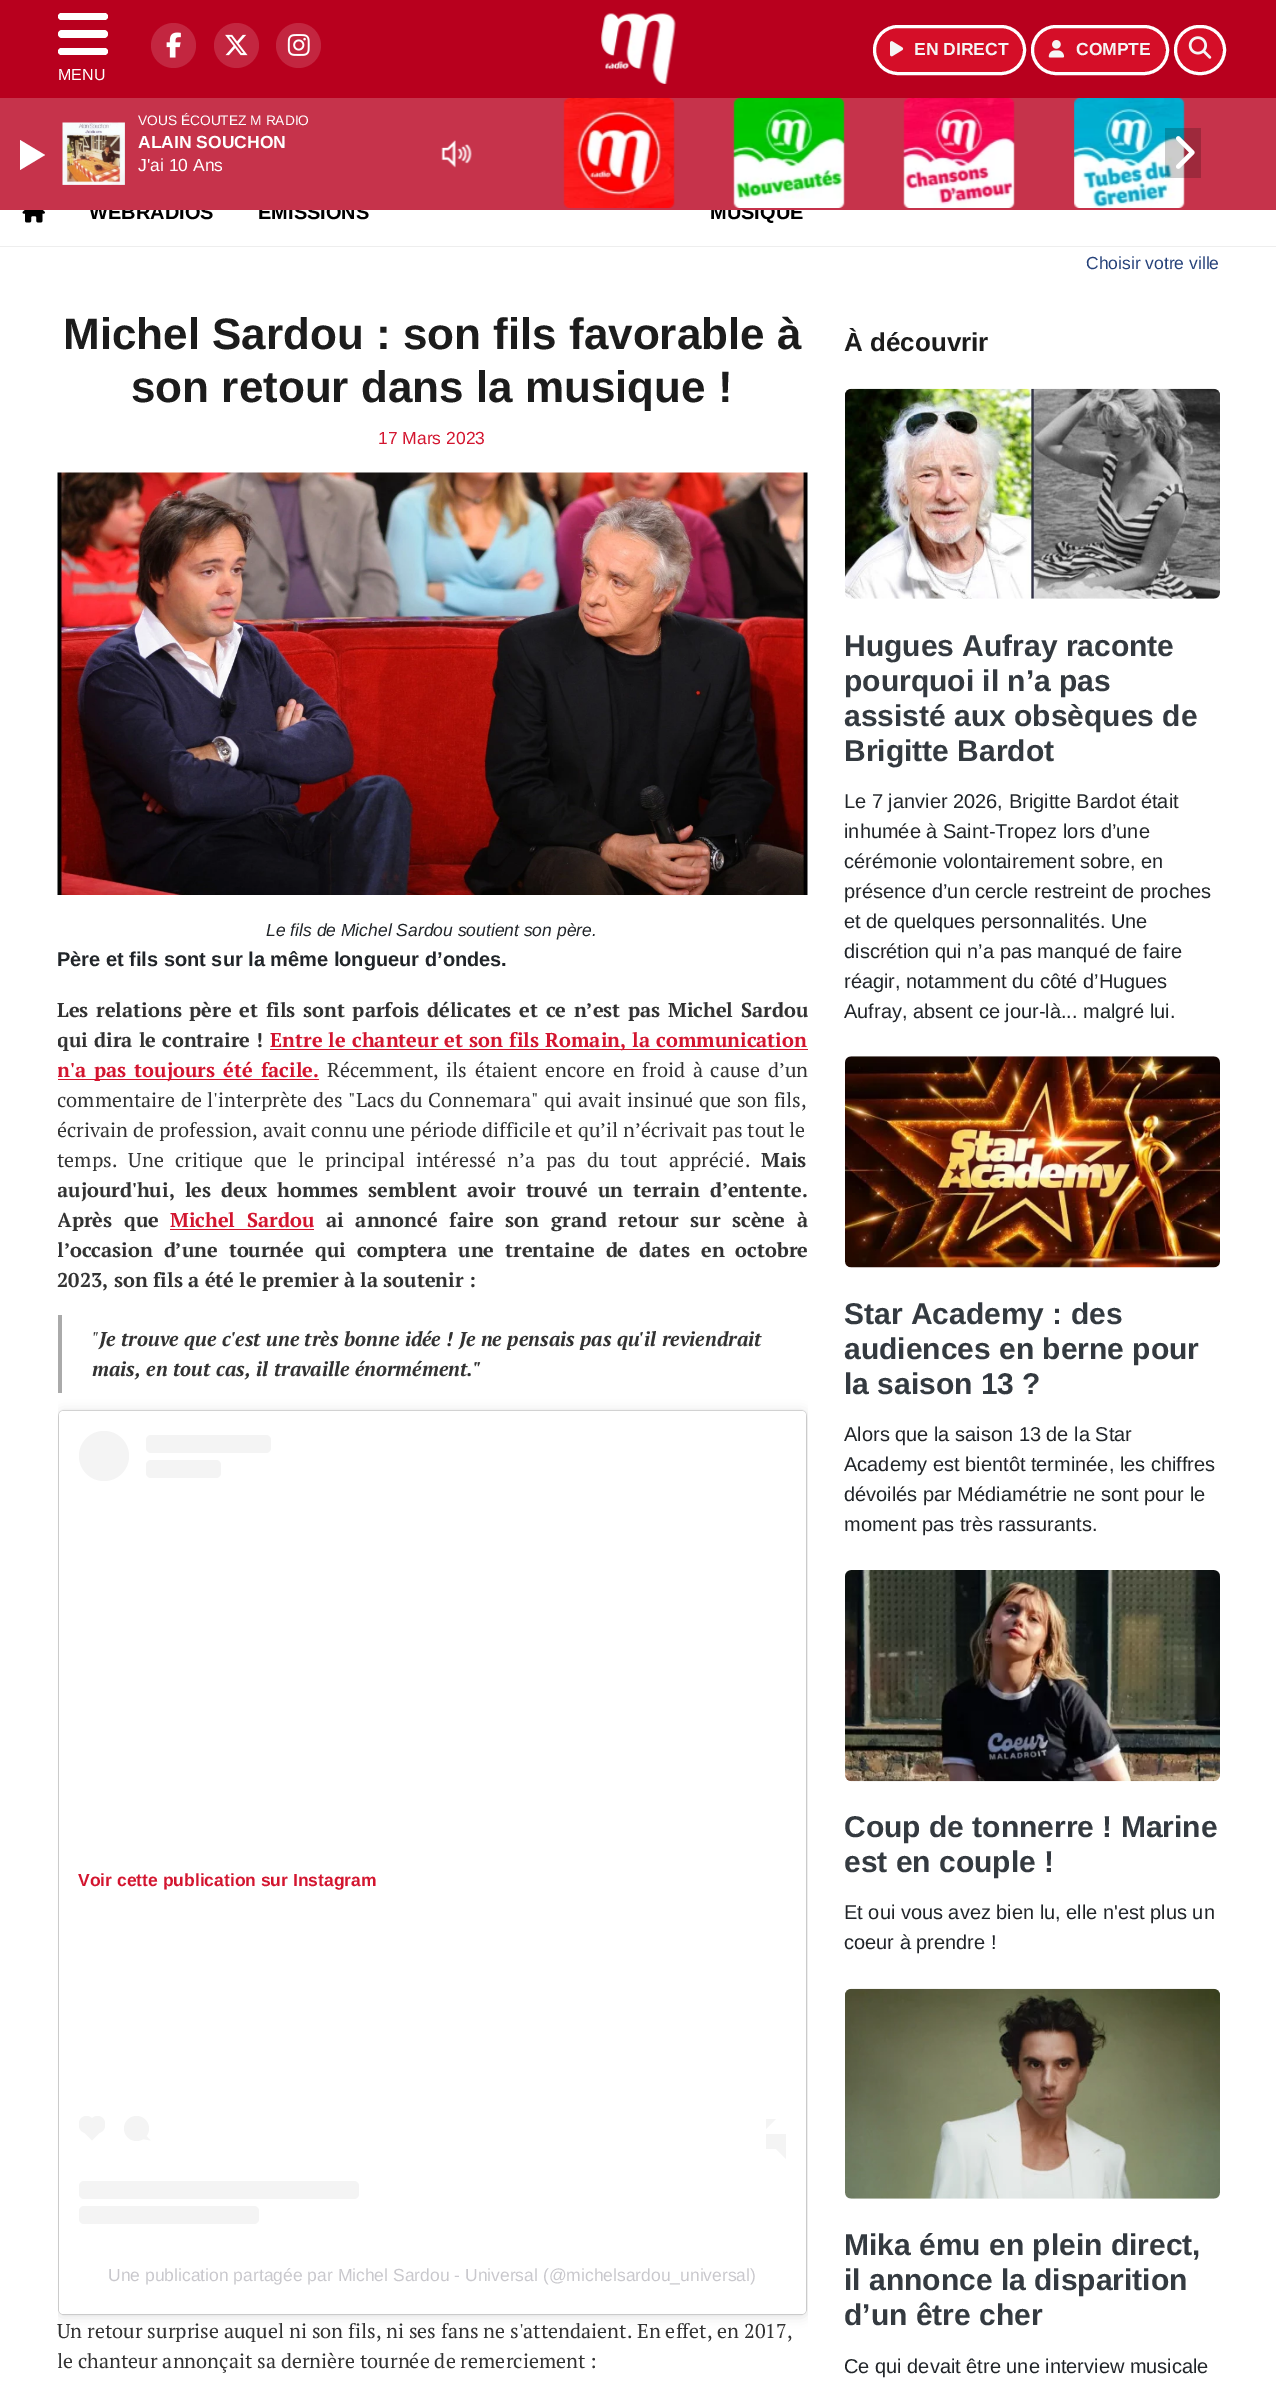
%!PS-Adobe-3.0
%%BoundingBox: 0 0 1276 2391
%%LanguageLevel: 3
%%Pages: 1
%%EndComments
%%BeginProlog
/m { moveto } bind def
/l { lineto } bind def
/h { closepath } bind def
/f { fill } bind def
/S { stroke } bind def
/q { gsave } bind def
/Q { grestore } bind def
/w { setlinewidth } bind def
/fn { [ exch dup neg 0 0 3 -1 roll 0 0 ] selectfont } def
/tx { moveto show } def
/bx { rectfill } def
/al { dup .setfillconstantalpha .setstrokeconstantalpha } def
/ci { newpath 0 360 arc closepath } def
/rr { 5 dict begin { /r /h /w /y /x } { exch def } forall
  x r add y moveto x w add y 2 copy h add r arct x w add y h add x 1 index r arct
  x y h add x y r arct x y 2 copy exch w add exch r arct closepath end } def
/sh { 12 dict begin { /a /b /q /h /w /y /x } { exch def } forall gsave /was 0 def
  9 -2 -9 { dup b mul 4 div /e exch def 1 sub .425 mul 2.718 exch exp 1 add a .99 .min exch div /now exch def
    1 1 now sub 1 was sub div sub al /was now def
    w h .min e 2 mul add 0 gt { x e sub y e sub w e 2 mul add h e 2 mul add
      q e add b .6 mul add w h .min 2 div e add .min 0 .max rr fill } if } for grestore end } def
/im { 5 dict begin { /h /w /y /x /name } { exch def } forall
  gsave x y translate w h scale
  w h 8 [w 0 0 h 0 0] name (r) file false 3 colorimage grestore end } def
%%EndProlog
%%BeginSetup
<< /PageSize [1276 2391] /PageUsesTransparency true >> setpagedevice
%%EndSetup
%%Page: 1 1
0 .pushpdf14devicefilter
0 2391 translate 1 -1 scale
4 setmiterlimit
1 setgray
0 0 1276 2391 bx
0.722 0 0.118 setrgbcolor
0 0 1276 98 bx
0.765 0.149 0.251 setrgbcolor
173.5 45.5 22.5 ci f
(image0.raw) 166 32 15 26 im
236.5 45.5 22.5 ci f
(image1.raw) 225 34 23 22 im
298.5 45.5 22.5 ci f
(image2.raw) 287 34 23 22 im
(image3.raw) 601 13 75 71 im
0.835 0.055 0.157 setrgbcolor
874.5 26.5 150 47 23.5 rr q f Q
1 setgray
3 w
S
(image4.raw) 890 41 14 16 im
/LiberationSans-Bold 17.5 fn
0.961 setgray
(EN DIRECT) 914 55 tx
0.835 0.055 0.157 setrgbcolor
1032.5 26.5 135 47 23.5 rr q f Q
1 setgray
S
(image5.raw) 1048 40 17 18 im
0.961 setgray
(COMPTE) 1076 55 tx
0.835 0.055 0.157 setrgbcolor
1175.5 26.5 49 47 23.5 rr q f Q
1 setgray
S
(image6.raw) 1188 36 24 23 im
58 13 50 7 3.5 rr f
58 30 50 8 4 rr f
58 48 50 7 3.5 rr f
/LiberationSans-Regular 16 fn
(MENU) 58 80 tx
0.933 setgray
0 246 1276 1 bx
(image7.raw) 22 210 23 13 im
/LiberationSans-Bold 20 fn
0 setgray
(WEBRADIOS) 89 219 tx
(EMISSIONS) 258 219 tx
(MUSIQUE) 710 219 tx
/LiberationSans-Regular 17.5 fn
0.149 0.259 0.478 setrgbcolor
(Choisir votre ville) 1086 269 tx
/LiberationSans-Bold 44 fn
0.11 setgray
(Michel Sardou : son fils favorable à) 63 349 tx
(son retour dans la musique !) 131 402 tx
/LiberationSans-Regular 17.5 fn
0.827 0.082 0.184 setrgbcolor
(17 Mars 2023) 378 444 tx
(image8.raw) 57 472 751 423 im
/LiberationSans-Italic 17.5 fn
0.129 0.145 0.161 setrgbcolor
(Le fils de Michel Sardou soutient son père.) 266 936 tx
/LiberationSans-Bold 20 fn
(Père et fils sont sur la même longueur d’ondes.) 57 966 tx
/PTSerif-Bold 20 fn
0.2 setgray
57 1017 m 2.25 0 32 (Les relations père et fils sont parfois délicates et ce n’est pas Michel Sardou) widthshow
q
58 995 750 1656 rectclip
57 1047 m 0.75 0 32 (qui dira le contraire !) widthshow
Q
0.827 0.082 0.184 setrgbcolor
270 1049 538 1 bx
270 1047 m 0.75 0 32 (Entre le chanteur et son fils Romain, la communication) widthshow
58 1079 261 1 bx
q
58 995 750 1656 rectclip
57 1077 m 2.75 0 32 (n'a pas toujours été facile.) widthshow
Q
/PTSerif-Regular 20 fn
0.2 setgray
327 1077 m 2.75 0 32 (Récemment, ils étaient encore en froid à cause d’un) widthshow
q
58 995 750 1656 rectclip
57 1107 m 0.6 0 32 (commentaire de l'interprète des "Lacs du Connemara" qui avait insinué que son fils,) widthshow
(écrivain de profession, avait connu une période difficile et qu’il n’écrivait pas tout le) 57 1137 tx
Q
57 1167 m 6.1 0 32 (temps. Une critique que le principal intéressé n’a pas du tout apprécié.) widthshow
/PTSerif-Bold 20 fn
(Mais) 761 1167 tx
q
58 995 750 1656 rectclip
57 1197 m 4.5 0 32 (aujourd'hui, les deux hommes semblent avoir trouvé un terrain d’entente.) widthshow
57 1227 m 6.25 0 32 (Après que) widthshow
Q
0.827 0.082 0.184 setrgbcolor
170 1227 m 6.25 0 32 (Michel Sardou) widthshow
170 1229 144 1 bx
0.2 setgray
326 1227 m 6.25 0 32 (ai annoncé faire son grand retour sur scène à) widthshow
q
58 995 750 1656 rectclip
57 1257 m 5.5 0 32 (l’occasion d’une tournée qui comptera une trentaine de dates en octobre) widthshow
Q
(2023, son fils a été le premier à la soutenir :) 57 1287 tx
0.667 setgray
58 1315 4 78 bx
/PTSerif-Italic 20 fn
0.2 setgray
(") 92 1346 tx
/PTSerif-BoldItalic 20 fn
(Je trouve que c'est une très bonne idée ! Je ne pensais pas qu'il reviendrait) 99 1346 tx
(mais, en tout cas, il travaille énormément.") 92 1376 tx
q
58 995 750 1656 rectclip
0 setgray
59 1413 747 902 4 6 0.15 sh
Q
0 setgray
59 1411 747 903 4 0.5 0.5 sh
1 setgray
59 1411 747 903 4 rr f
0.957 setgray
104 1456 25 ci f
146 1435 125 18 5 rr f
146 1460 75 18 5 rr f
/LiberationSans-Bold 17.5 fn
0.827 0.082 0.184 setrgbcolor
(Voir cette publication sur Instagram) 78 1886 tx
0.957 setgray
79 2116 15 17 7.5 rr f
81 2129.5 m 92 2118.5 l 103 2129.5 l 92 2140.5 l h f
90 2116 15 17 7.5 rr f
136.5 2128.5 12.5 ci f
143 2139 m 145.5 2135 l 150.5 2140.5 l h f
766 2119 m 776 2119 l 766 2129 l h f
766 2134 20 15 bx
776 2149 m 786 2149 l 786 2159 l h f
79 2181 280 18 5 rr f
79 2206 180 18 5 rr f
/LiberationSans-Regular 17.5 fn
0.788 0.784 0.804 setrgbcolor
(Une publication partagée par Michel Sardou - Universal \(@michelsardou_universal\)) 108 2281 tx
/PTSerif-Regular 20 fn
0.2 setgray
(Un retour surprise auquel ni son fils, ni ses fans ne s'attendaient. En effet, en 2017,) 57 2338 tx
q
58 995 750 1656 rectclip
(le chanteur annonçait sa dernière tournée de remerciement :) 57 2368 tx
Q
/LiberationSans-Bold 26 fn
0.11 setgray
(À découvrir) 844 351 tx
(image9.raw) 845 388 375 211 im
/LiberationSans-Bold 30 fn
0.204 0.227 0.251 setrgbcolor
(Hugues Aufray raconte) 844 656 tx
(pourquoi il n’a pas) 844 691 tx
(assisté aux obsèques de) 844 726 tx
(Brigitte Bardot) 844 761 tx
/LiberationSans-Regular 20 fn
0.129 0.145 0.161 setrgbcolor
(Le 7 janvier 2026, Brigitte Bardot était) 844 808 tx
(inhumée à Saint-Tropez lors d’une) 844 838 tx
(cérémonie volontairement sobre, en) 844 868 tx
(présence d’un cercle restreint de proches) 844 898 tx
(et de quelques personnalités. Une) 844 928 tx
(discrétion qui n’a pas manqué de faire) 844 958 tx
(réagir, notamment du côté d’Hugues) 844 988 tx
(Aufray, absent ce jour-là... malgré lui.) 844 1018 tx
(image10.raw) 845 1056 375 212 im
/LiberationSans-Bold 30 fn
0.204 0.227 0.251 setrgbcolor
(Star Academy : des) 844 1324 tx
(audiences en berne pour) 844 1359 tx
(la saison 13 ?) 844 1394 tx
/LiberationSans-Regular 20 fn
0.129 0.145 0.161 setrgbcolor
(Alors que la saison 13 de la Star) 844 1441 tx
(Academy est bientôt terminée, les chiffres) 844 1471 tx
(dévoilés par Médiamétrie ne sont pour le) 844 1501 tx
(moment pas très rassurants.) 844 1531 tx
(image11.raw) 845 1570 375 212 im
/LiberationSans-Bold 30 fn
0.204 0.227 0.251 setrgbcolor
(Coup de tonnerre ! Marine) 844 1837 tx
(est en couple !) 844 1872 tx
/LiberationSans-Regular 20 fn
0.129 0.145 0.161 setrgbcolor
(Et oui vous avez bien lu, elle n'est plus un) 844 1919 tx
(coeur à prendre !) 844 1949 tx
(image12.raw) 845 1988 375 211 im
/LiberationSans-Bold 30 fn
0.204 0.227 0.251 setrgbcolor
(Mika ému en plein direct,) 844 2255 tx
(il annonce la disparition) 844 2290 tx
(d’un être cher) 844 2325 tx
/LiberationSans-Regular 20 fn
0.129 0.145 0.161 setrgbcolor
(Ce qui devait être une interview musicale) 844 2373 tx
0.776 0.2 0.294 setrgbcolor
0 98 1276 112 bx
/LiberationSans-Regular 13.75 fn
1 setgray
(VOUS ÉCOUTEZ M RADIO) 138 125 tx
(image13.raw) 62 122 63 63 im
/LiberationSans-Bold 17.5 fn
(ALAIN SOUCHON) 138 148 tx
/LiberationSans-Regular 17.5 fn
(J'ai 10 Ans) 138 171 tx
20 170 m 20 140 l 45 155 l h f
(image14.raw) 441 140 31 28 im
(image15.raw) 563 98 112 110 im
(image16.raw) 733 98 112 110 im
(image17.raw) 903 98 112 110 im
(image18.raw) 1074 98 111 110 im
0.2 al
0 setgray
1165 128 36 50 bx
1 al
(image19.raw) 1176 136 19 33 im
.poppdf14devicefilter showpage
%%EOF
